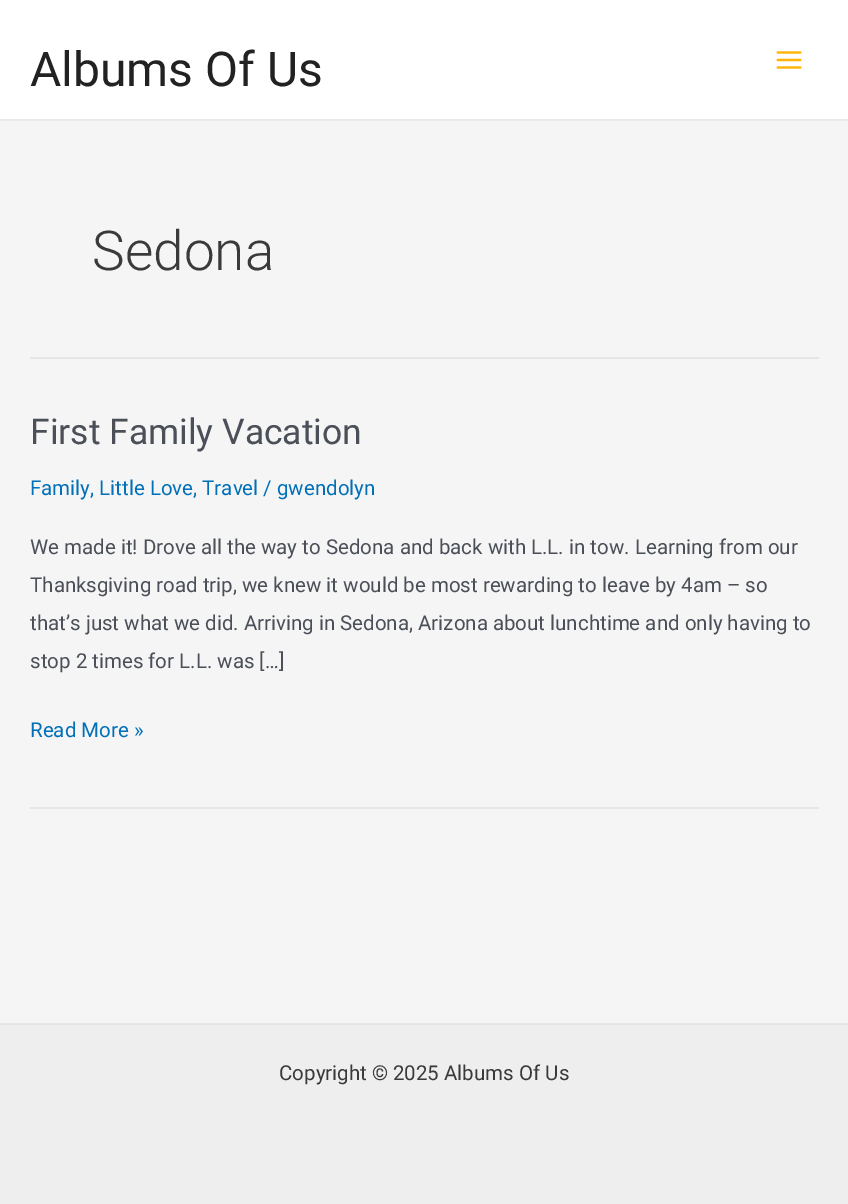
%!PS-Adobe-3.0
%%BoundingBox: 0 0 848 1204
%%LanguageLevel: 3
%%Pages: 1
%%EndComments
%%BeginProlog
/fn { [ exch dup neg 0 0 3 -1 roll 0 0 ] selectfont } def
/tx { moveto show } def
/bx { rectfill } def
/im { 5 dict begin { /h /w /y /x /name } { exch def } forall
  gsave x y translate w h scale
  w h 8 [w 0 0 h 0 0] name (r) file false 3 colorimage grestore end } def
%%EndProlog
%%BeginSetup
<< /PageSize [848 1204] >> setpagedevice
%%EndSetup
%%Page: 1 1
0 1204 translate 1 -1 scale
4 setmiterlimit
0.961 setgray
0 0 848 1204 bx
1 setgray
0 0 848 119 bx
0.918 setgray
0 119 848 2 bx
/Roboto-Regular 48 fn
0.133 setgray
(Albums Of Us) 30 86 tx
(image0.raw) 776 51 26 18 im
0.898 setgray
30 357 789 2 bx
/Roboto-Light 55 fn
0.227 setgray
(Sedona) 92 270 tx
0.898 setgray
30 807 789 2 bx
/Roboto-Regular 35.5 fn
0.294 0.31 0.345 setrgbcolor
(First Family Vacation) 30 444 tx
/Roboto-Regular 20.5 fn
0.004 0.439 0.725 setrgbcolor
(Family, Little Love, Travel / gwendolyn) 30 495 tx
0.294 0.31 0.345 setrgbcolor
(We made it! Drove all the way to Sedona and back with L.L. in tow. Learning from our) 30 554 tx
(Thanksgiving road trip, we knew it would be most rewarding to leave by 4am – so) 30 592 tx
(that’s just what we did. Arriving in Sedona, Arizona about lunchtime and only having to) 30 630 tx
(stop 2 times for L.L. was […]) 30 668 tx
0.004 0.439 0.725 setrgbcolor
(Read More ») 30 737 tx
0.933 setgray
0 1025 848 179 bx
0.898 setgray
0 1023 848 2 bx
0.227 setgray
(Copyright © 2025 Albums Of Us) 279 1080 tx
showpage
%%EOF
